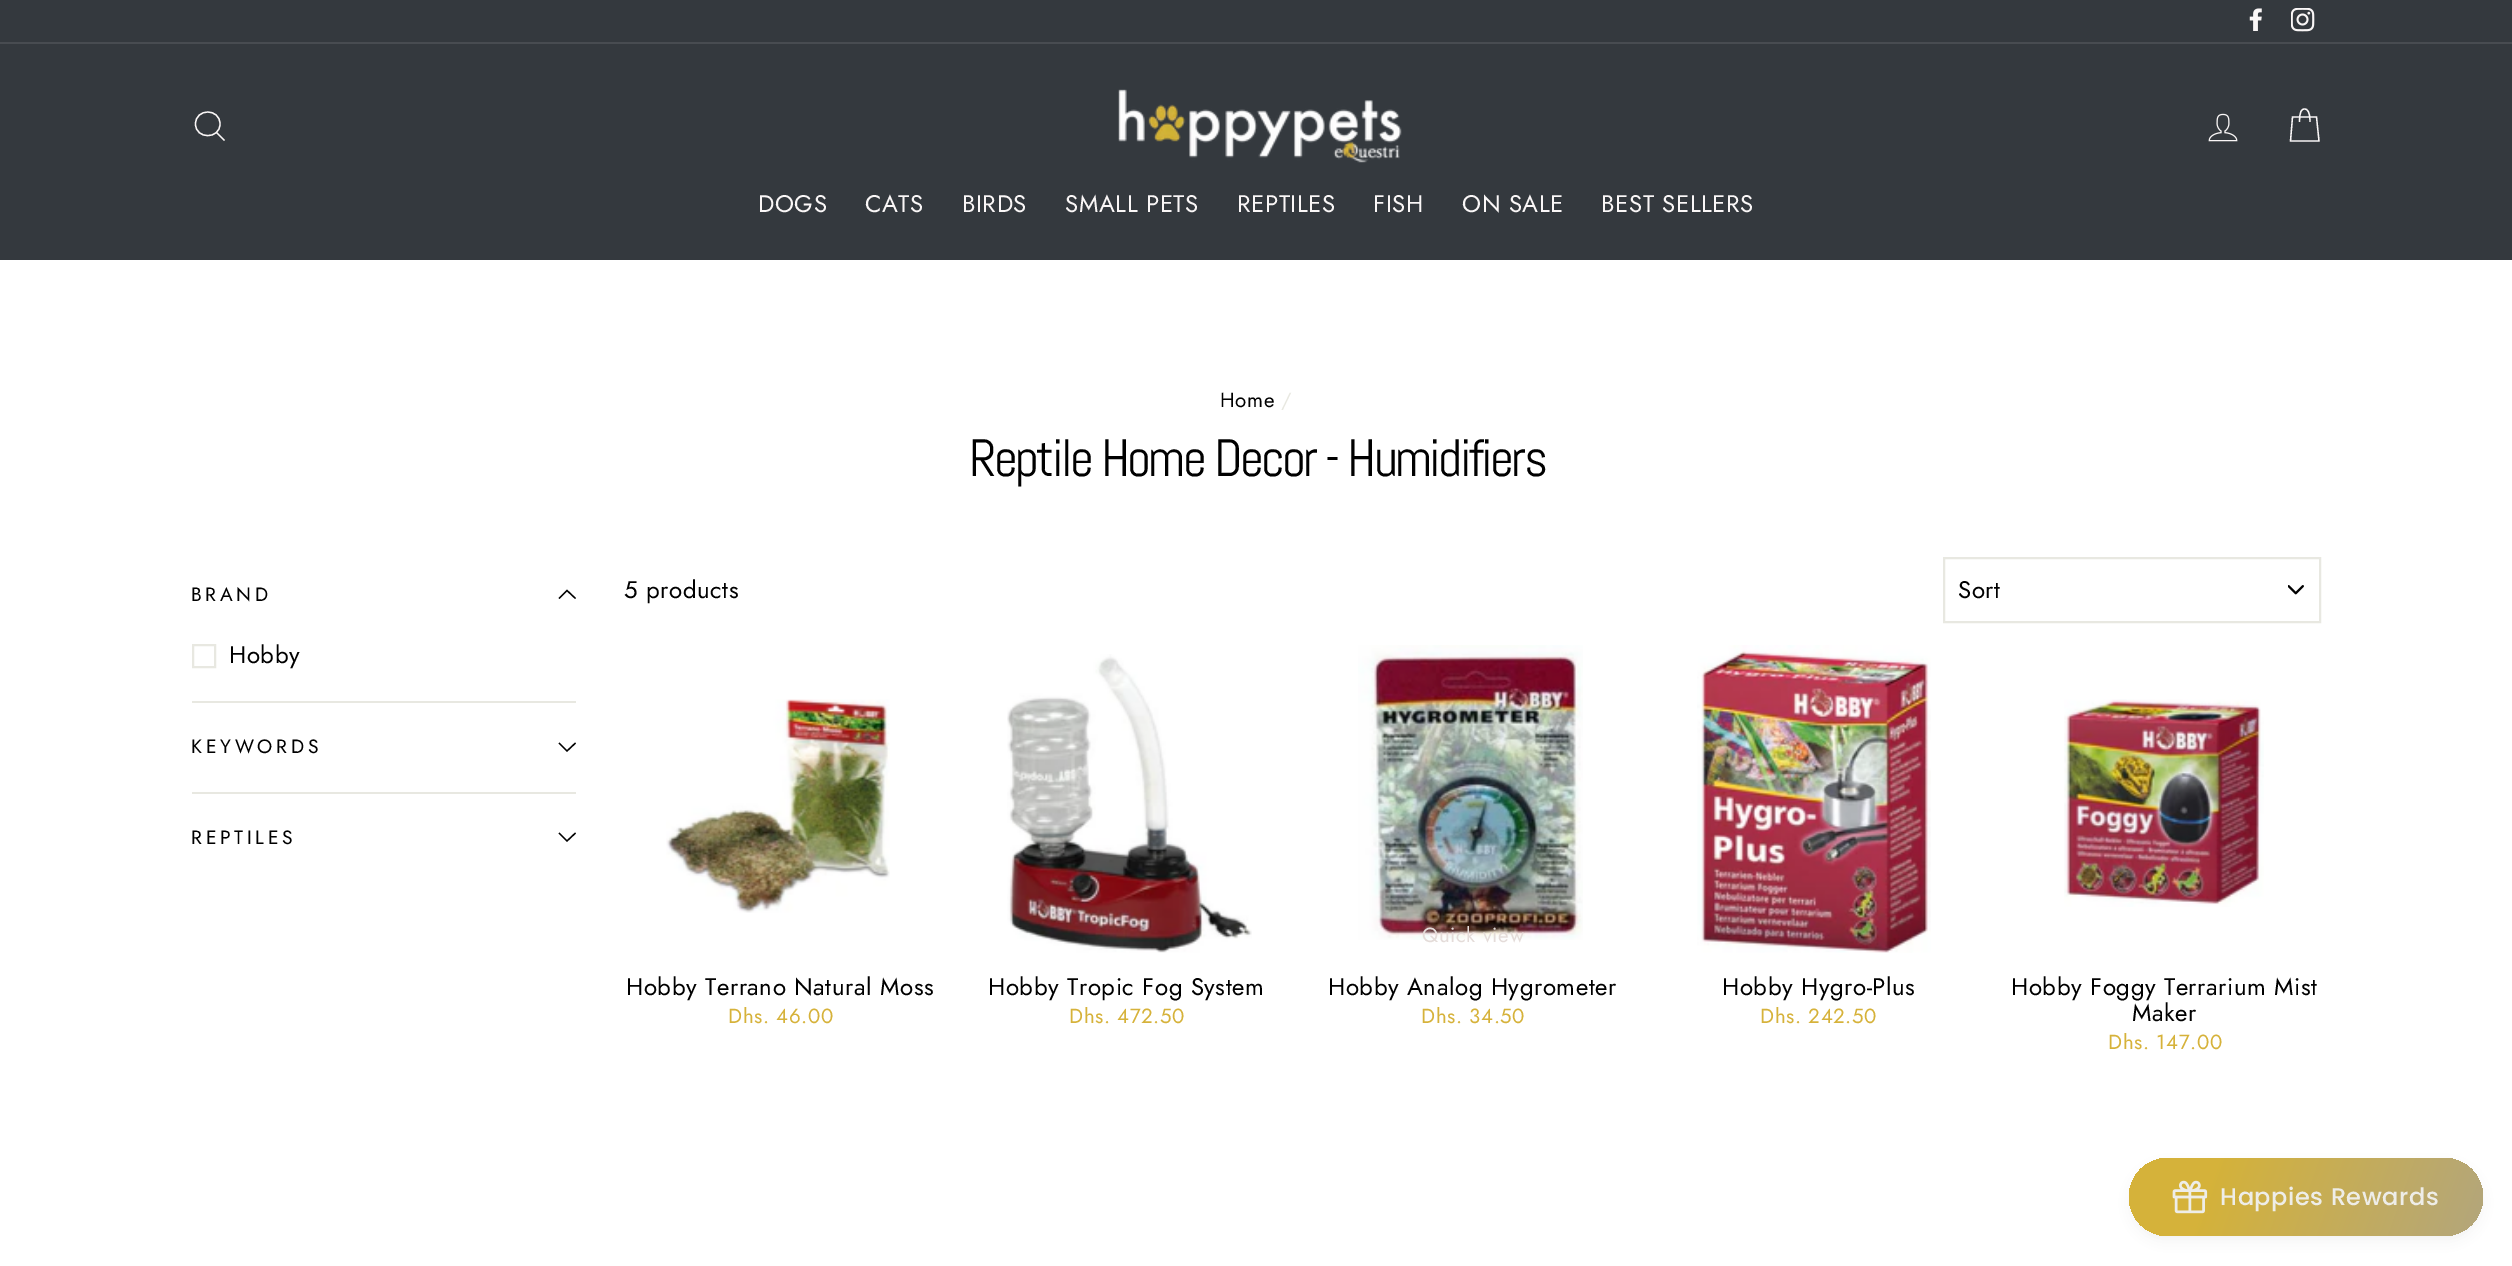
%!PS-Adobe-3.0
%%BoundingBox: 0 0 2512 1266
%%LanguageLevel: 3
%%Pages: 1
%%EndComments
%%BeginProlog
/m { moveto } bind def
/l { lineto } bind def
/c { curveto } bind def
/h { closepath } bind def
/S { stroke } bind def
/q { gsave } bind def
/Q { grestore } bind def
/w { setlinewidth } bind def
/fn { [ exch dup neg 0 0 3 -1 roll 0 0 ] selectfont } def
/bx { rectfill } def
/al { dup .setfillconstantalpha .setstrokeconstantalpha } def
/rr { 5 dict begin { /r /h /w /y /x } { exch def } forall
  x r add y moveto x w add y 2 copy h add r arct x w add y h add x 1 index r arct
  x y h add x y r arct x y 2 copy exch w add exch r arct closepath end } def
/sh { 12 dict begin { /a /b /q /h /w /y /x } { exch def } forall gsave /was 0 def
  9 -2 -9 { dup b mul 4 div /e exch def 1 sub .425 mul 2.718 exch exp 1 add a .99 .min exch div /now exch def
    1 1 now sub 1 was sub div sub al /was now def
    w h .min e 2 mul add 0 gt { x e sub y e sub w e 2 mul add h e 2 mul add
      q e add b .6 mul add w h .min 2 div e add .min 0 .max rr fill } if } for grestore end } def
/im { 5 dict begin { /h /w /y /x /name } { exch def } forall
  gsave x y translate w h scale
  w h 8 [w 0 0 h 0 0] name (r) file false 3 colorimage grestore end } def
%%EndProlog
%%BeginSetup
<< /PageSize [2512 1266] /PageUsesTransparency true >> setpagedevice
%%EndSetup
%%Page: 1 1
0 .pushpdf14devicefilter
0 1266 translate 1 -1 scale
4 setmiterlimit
1 setgray
0 0 2512 1266 bx
0.204 0.224 0.243 setrgbcolor
0 0 2512 42 bx
(image0.raw) 2249 8 13 23 im
(image1.raw) 2291 8 24 24 im
0 44 2512 216 bx
0.282 0.298 0.318 setrgbcolor
0 42 2512 2 bx
0.98 0.969 0.969 setrgbcolor
1.3 w
220 124 m 220 139.5 195.5 139.5 195.5 124 c 195.5 108 220 108 220 124 c h 224.5 140.5 m 216.5 132.5 l S
(image2.raw) 1118 89 284 74 im
(image3.raw) 2208 113 30 29 im
2299.5 122 m 2299.5 111.5 2301.5 109 2304.5 109 c 2307.5 109 2310 111.5 2310 122 c 2292.5 117 m 2316.5 117 l 2319 141 l 2290.5 141 l h S
/Jost-Regular 24 fn
758 212 m 0.6 0 (DOGS) ashow
865 212 m 0.6 0 (CATS) ashow
962 212 m 0.6 0 (BIRDS) ashow
1065 212 m 0.6 0 (SMALL PETS) ashow
1237 212 m 0.6 0 (REPTILES) ashow
1373 212 m 0.6 0 (FISH) ashow
1462 212 m 0.6 0 (ON SALE) ashow
1601 212 m 0.6 0 (BEST SELLERS) ashow
/Jost-Regular 20.5 fn
0 setgray
1220 407 m 0.6 0 (Home) ashow
0.91 0.91 0.882 setrgbcolor
1281 407 m 0.6 0 (/) ashow
/Abel-Regular 52.5 fn
0 setgray
969 476 m -2.6 0 (Reptile Home Decor - Humidifiers) ashow
/Jost-Regular 19.25 fn
191 601 m 3.75 0 (BRAND) ashow
559 598.5 m 567 590.5 l 575.5 598.5 l S
0.91 0.91 0.882 setrgbcolor
2 w
193 645 22 22 rectstroke
/Jost-Regular 24 fn
0 setgray
229 663 m 0.6 0 (Hobby) ashow
0.91 0.91 0.882 setrgbcolor
192 701 384 2 bx
/Jost-Regular 19.25 fn
0 setgray
191 753 m 3.75 0 (KEYWORDS) ashow
1.3 w
559 743 m 567 751 l 575.5 743 l S
0.91 0.91 0.882 setrgbcolor
192 792 384 2 bx
0 setgray
191 844 m 3.75 0 (REPTILES) ashow
559 833 m 567 841 l 575.5 833 l S
/Jost-Regular 24 fn
624 598 m 0.6 0 (5 products) ashow
(image4.raw) 2288 585 16 10 im
0.91 0.91 0.882 setrgbcolor
2 w
1944 558 376 64 rectstroke
0 setgray
1958 598 m 0.6 0 (Sort) ashow
(image5.raw) 666 699 224 214 im
626 995 m 0.6 0 (Hobby Terrano Natural Moss) ashow
/Jost-Regular 20.5 fn
0.839 0.698 0.227 setrgbcolor
728 1023 m 0.6 0 (Dhs. 46.00) ashow
(image6.raw) 1007 654 245 299 im
/Jost-Regular 24 fn
0 setgray
988 995 m 0.6 0 (Hobby Tropic Fog System) ashow
/Jost-Regular 20.5 fn
0.839 0.698 0.227 setrgbcolor
1069 1023 m 0.6 0 (Dhs. 472.50) ashow
(image7.raw) 1358 645 225 295 im
0.894 0.863 0.851 setrgbcolor
1422 942 m 0.6 0 (Quick view) ashow
/Jost-Regular 24 fn
0 setgray
1328 995 m 0.6 0 (Hobby Analog Hygrometer) ashow
/Jost-Regular 20.5 fn
0.839 0.698 0.227 setrgbcolor
1421 1023 m 0.6 0 (Dhs. 34.50) ashow
(image8.raw) 1697 645 234 308 im
/Jost-Regular 24 fn
0 setgray
1722 995 m 0.6 0 (Hobby Hygro-Plus) ashow
/Jost-Regular 20.5 fn
0.839 0.698 0.227 setrgbcolor
1760 1023 m 0.6 0 (Dhs. 242.50) ashow
(image9.raw) 2064 699 200 208 im
/Jost-Regular 24 fn
0 setgray
2011 995 m 0.6 0 (Hobby Foggy Terrarium Mist) ashow
2132 1021 m 0.6 0 (Maker) ashow
/Jost-Regular 20.5 fn
0.839 0.698 0.227 setrgbcolor
2108 1049 m 0.6 0 (Dhs. 147.00) ashow
0.267 setgray
2132 1167 348 72 36 6 0.08 sh
q 2129 1158 354 78 39 rr clip newpath
<< /ShadingType 2 /ColorSpace /DeviceRGB /Coords [2136 1137 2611 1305] /Extend [true true] /Function << /FunctionType 3 /Domain [0 1] /Functions [<< /FunctionType 2 /Domain [0 1] /C0 [0.835 0.698 0.227] /C1 [0.835 0.698 0.227] /N 1 >> << /FunctionType 2 /Domain [0 1] /C0 [0.835 0.698 0.227] /C1 [0.635 0.624 0.624] /N 1 >>] /Bounds [0.17] /Encode [0 1 0 1] >> >> shfill Q
(image10.raw) 2172 1180 36 34 im
/Poppins-Medium 24 fn
0.933 0.929 0.91 setrgbcolor
2220 1205 m 0.6 0 (Happies Rewards) ashow
.poppdf14devicefilter showpage
%%EOF
